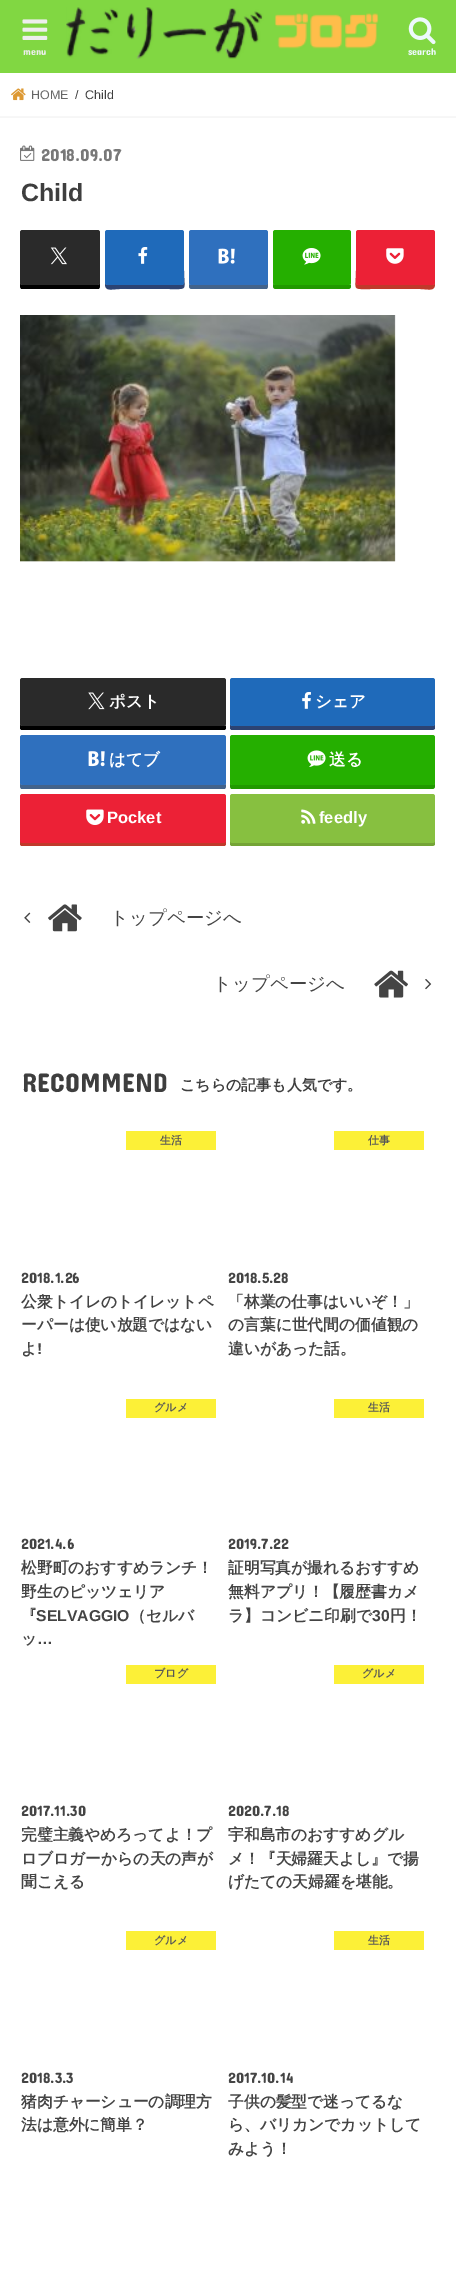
%!PS-Adobe-3.0
%%BoundingBox: 0 0 456 2281
%%LanguageLevel: 3
%%Pages: 1
%%EndComments
%%BeginProlog
/m { moveto } bind def
/l { lineto } bind def
/c { curveto } bind def
/h { closepath } bind def
/f { fill } bind def
/fn { [ exch dup neg 0 0 3 -1 roll 0 0 ] selectfont } def
/tx { moveto show } def
/bx { rectfill } def
/al { dup .setfillconstantalpha .setstrokeconstantalpha } def
/rr { 5 dict begin { /r /h /w /y /x } { exch def } forall
  x r add y moveto x w add y 2 copy h add r arct x w add y h add x 1 index r arct
  x y h add x y r arct x y 2 copy exch w add exch r arct closepath end } def
/sh { 12 dict begin { /a /b /q /h /w /y /x } { exch def } forall gsave /was 0 def
  9 -2 -9 { dup b mul 4 div /e exch def 1 sub .425 mul 2.718 exch exp 1 add a .99 .min exch div /now exch def
    1 1 now sub 1 was sub div sub al /was now def
    w h .min e 2 mul add 0 gt { x e sub y e sub w e 2 mul add h e 2 mul add
      q e add b .6 mul add w h .min 2 div e add .min 0 .max rr fill } if } for grestore end } def
/im { 5 dict begin { /h /w /y /x /name } { exch def } forall
  gsave x y translate w h scale
  w h 8 [w 0 0 h 0 0] name (r) file false 3 colorimage grestore end } def
%%EndProlog
%%BeginSetup
<< /PageSize [456 2281] /PageUsesTransparency true >> setpagedevice
%%EndSetup
%%Page: 1 1
0 .pushpdf14devicefilter
0 2281 translate 1 -1 scale
4 setmiterlimit
1 setgray
0 0 456 2281 bx
0.506 0.843 0.259 setrgbcolor
0 0 456 73 bx
(image0.raw) 22 19 26 21 im
/ConcertOne-Regular 10 fn
0.933 setgray
(menu) 23 55 tx
(image1.raw) 66 7 313 52 im
(image2.raw) 408 17 28 28 im
0.929 0.976 0.988 setrgbcolor
(search) 408 55 tx
0.969 setgray
0 116 456 1 bx
(image3.raw) 11 88 15 13 im
/LiberationSans-Regular 12.5 fn
0.4 setgray
(HOME) 31 99 tx
0.243 setgray
(/) 75 99 tx
(Child) 85 99 tx
0.867 setgray
0 118 456 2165 0 0.5 1 sh
1 setgray
0 118 456 2163 bx
(image4.raw) 20 145 15 16 im
/ConcertOne-Regular 17.5 fn
0.471 setgray
(2018.09.07) 41 161 tx
/LiberationSans-Bold 25 fn
0.243 setgray
(Child) 21 201 tx
0 setgray
20 282 m 20 286 l 20 288 21 289 22 289 c 98 289 l 99 289 100 288 100 286 c 100 282 l 100 284 99 285 98 285 c 22 285 l 21 285 20 284 20 282 c h f
0.165 setgray
20 230 80 55 2.5 rr f
(image5.raw) 50 247 17 18 im
0.173 0.263 0.451 setrgbcolor
105 282 m 105 284 l 105 292 112 289 120 289 c 169 289 l 189 289 184 291 184 270 c 184 235 l 184 282 l 184 284 183 285 181 285 c 108 285 l 106 285 105 284 105 282 c h f
0.122 0.416 0.729 setrgbcolor
105 230 79 55 2.5 rr f
(image6.raw) 138 247 10 17 im
0.263 0.388 0.545 setrgbcolor
189 284 m 189 286 l 189 288 190 289 192 289 c 266 289 l 267 289 268 288 268 286 c 268 236 l 268 235 l 268 282 l 268 284 266 285 265 285 c 191 285 l 190 285 189 284 189 284 c h f
0.184 0.439 0.745 setrgbcolor
189 230 79 55 2.5 rr f
(image7.raw) 218 248 17 16 im
0.129 0.6 0 setrgbcolor
273 284 m 273 286 l 273 288 274 289 276 289 c 348 289 l 350 289 351 288 351 286 c 351 284 l 350 285 l 275 285 l h f
0.145 0.686 0 setrgbcolor
273 230 78 55 2.5 rr f
(image8.raw) 302 248 19 17 im
0.753 0.224 0.169 setrgbcolor
356 235 m 356 270 l 356 291 351 289 371 289 c 420 289 l 428 289 435 292 435 284 c 435 282 l 435 284 434 285 432 285 c 359 285 l 357 285 356 284 356 282 c h f
0.925 0.129 0.212 setrgbcolor
356 230 79 55 2.5 rr f
(image9.raw) 386 248 18 16 im
(image10.raw) 20 315 376 247 im
0 setgray
20 724 m 20 728 l 20 729 21 730 22 730 c 224 730 l 225 730 226 729 226 728 c 226 725 l 226 726 225 726 224 726 c 22 726 l 21 726 20 725 20 724 c h f
0.165 setgray
20 678 206 48 2.5 rr f
(image11.raw) 88 692 17 18 im
/WenQuanYiZenHei-Bold 16.5 fn
1 setgray
(ポスト) 109 707 tx
0.173 0.263 0.451 setrgbcolor
230 724 m 230 728 l 230 729 231 730 232 730 c 432 730 l 434 730 435 729 435 728 c 435 724 l 435 725 434 726 432 726 c 232 726 l 231 726 230 725 230 724 c h f
0.122 0.416 0.729 setrgbcolor
230 678 205 48 2.5 rr f
(image12.raw) 302 692 9 17 im
1 setgray
(シェア) 315 707 tx
0.263 0.388 0.545 setrgbcolor
20 782 m 20 786 l 20 788 21 789 22 789 c 224 789 l 225 789 226 788 226 786 c 226 784 l 226 784 225 785 224 785 c 22 785 l 21 785 20 784 20 782 c h f
0.184 0.439 0.745 setrgbcolor
20 735 206 50 2.5 rr f
(image13.raw) 88 751 17 16 im
1 setgray
(はてブ) 109 765 tx
0.129 0.6 0 setrgbcolor
230 782 m 230 786 l 230 788 231 789 232 789 c 432 789 l 434 789 435 788 435 786 c 435 782 l 435 784 434 785 432 785 c 232 785 l 231 785 230 784 230 782 c h f
0.145 0.686 0 setrgbcolor
230 735 205 50 2.5 rr f
(image14.raw) 307 750 19 17 im
1 setgray
(送る) 329 765 tx
0.753 0.224 0.169 setrgbcolor
20 840 m 20 844 l 20 845 21 846 22 846 c 224 846 l 225 846 226 845 226 844 c 226 841 l 226 842 225 842 224 842 c 22 842 l 21 842 20 841 20 840 c h f
0.925 0.129 0.212 setrgbcolor
20 794 206 49 2.5 rr f
(image15.raw) 86 809 18 16 im
/LiberationSans-Bold 16.5 fn
1 setgray
(Pocket) 107 823 tx
0.455 0.643 0.212 setrgbcolor
230 840 m 230 844 l 230 845 231 846 232 846 c 432 846 l 434 846 435 845 435 844 c 435 840 l 435 841 434 842 432 842 c 232 842 l 231 842 230 841 230 840 c h f
0.529 0.753 0.251 setrgbcolor
230 794 205 49 2.5 rr f
(image16.raw) 301 809 15 15 im
1 setgray
(feedly) 319 823 tx
(image17.raw) 24 912 7 11 im
(image18.raw) 48 904 34 28 im
/WenQuanYiZenHei-Medium 18.5 fn
0.267 setgray
(トップページへ) 110 924 tx
(トップページへ) 213 990 tx
(image19.raw) 374 970 34 28 im
(image20.raw) 425 979 7 11 im
/ConcertOne-Regular 27 fn
0.243 setgray
(RECOMMEND) 22 1092 tx
/WenQuanYiZenHei-Bold 15 fn
(こちらの記事も人気です。) 180 1090 tx
0.988 0.941 0.216 setrgbcolor
126 1131 90 19 bx
/WenQuanYiZenHei-Bold 11 fn
0.341 setgray
(生活) 160 1144 tx
/ConcertOne-Regular 15 fn
0.267 setgray
(2018.1.26) 21 1283 tx
/WenQuanYiZenHei-Bold 15.75 fn
(公衆トイレのトイレットペ) 21 1307 tx
(ーパーは使い放題ではない) 21 1330 tx
(よ) 21 1354 tx
/LiberationSans-Bold 15.75 fn
(!) 37 1354 tx
0.988 0.941 0.216 setrgbcolor
334 1131 90 19 bx
/WenQuanYiZenHei-Bold 11 fn
0.341 setgray
(仕事) 368 1144 tx
/ConcertOne-Regular 15 fn
0.267 setgray
(2018.5.28) 228 1283 tx
/WenQuanYiZenHei-Bold 15.75 fn
(「林業の仕事はいいぞ！」) 228 1307 tx
(の言葉に世代間の価値観の) 228 1330 tx
(違いがあった話。) 228 1354 tx
0.988 0.941 0.216 setrgbcolor
126 1399 90 19 bx
/WenQuanYiZenHei-Bold 11 fn
0.341 setgray
(グルメ) 154 1411 tx
/ConcertOne-Regular 15 fn
0.267 setgray
(2021.4.6) 21 1549 tx
/WenQuanYiZenHei-Bold 15.75 fn
(松野町のおすすめランチ！) 21 1573 tx
(野生のピッツェリア) 21 1597 tx
(『) 21 1621 tx
/LiberationSans-Bold 15.75 fn
(SELVAGGIO) 36 1621 tx
/WenQuanYiZenHei-Bold 15.75 fn
(（セルバ) 130 1621 tx
(ッ) 21 1644 tx
/LiberationSans-Bold 15.75 fn
(…) 37 1644 tx
0.988 0.941 0.216 setrgbcolor
334 1399 90 19 bx
/WenQuanYiZenHei-Bold 11 fn
0.341 setgray
(生活) 368 1411 tx
/ConcertOne-Regular 15 fn
0.267 setgray
(2019.7.22) 228 1549 tx
/WenQuanYiZenHei-Bold 15.75 fn
(証明写真が撮れるおすすめ) 228 1573 tx
(無料アプリ！【履歴書カメ) 228 1597 tx
(ラ】コンビニ印刷で) 228 1621 tx
/LiberationSans-Bold 15.75 fn
(30) 372 1621 tx
/WenQuanYiZenHei-Bold 15.75 fn
(円！) 390 1621 tx
0.988 0.941 0.216 setrgbcolor
126 1665 90 19 bx
/WenQuanYiZenHei-Bold 11 fn
0.341 setgray
(ブログ) 154 1677 tx
/ConcertOne-Regular 15 fn
0.267 setgray
(2017.11.30) 21 1816 tx
/WenQuanYiZenHei-Bold 15.75 fn
(完璧主義やめろってよ！プ) 21 1840 tx
(ロブロガーからの天の声が) 21 1864 tx
(聞こえる) 21 1887 tx
0.988 0.941 0.216 setrgbcolor
334 1665 90 19 bx
/WenQuanYiZenHei-Bold 11 fn
0.341 setgray
(グルメ) 362 1677 tx
/ConcertOne-Regular 15 fn
0.267 setgray
(2020.7.18) 228 1816 tx
/WenQuanYiZenHei-Bold 15.75 fn
(宇和島市のおすすめグル) 228 1840 tx
(メ！『天婦羅天よし』で揚) 228 1864 tx
(げたての天婦羅を堪能。) 228 1887 tx
0.988 0.941 0.216 setrgbcolor
126 1931 90 19 bx
/WenQuanYiZenHei-Bold 11 fn
0.341 setgray
(グルメ) 154 1944 tx
/ConcertOne-Regular 15 fn
0.267 setgray
(2018.3.3) 21 2083 tx
/WenQuanYiZenHei-Bold 15.75 fn
(猪肉チャーシューの調理方) 21 2107 tx
(法は意外に簡単？) 21 2130 tx
0.988 0.941 0.216 setrgbcolor
334 1931 90 19 bx
/WenQuanYiZenHei-Bold 11 fn
0.341 setgray
(生活) 368 1944 tx
/ConcertOne-Regular 15 fn
0.267 setgray
(2017.10.14) 228 2083 tx
/WenQuanYiZenHei-Bold 15.75 fn
(子供の髪型で迷ってるな) 228 2107 tx
(ら、バリカンでカットして) 228 2130 tx
(みよう！) 228 2154 tx
.poppdf14devicefilter showpage
%%EOF
